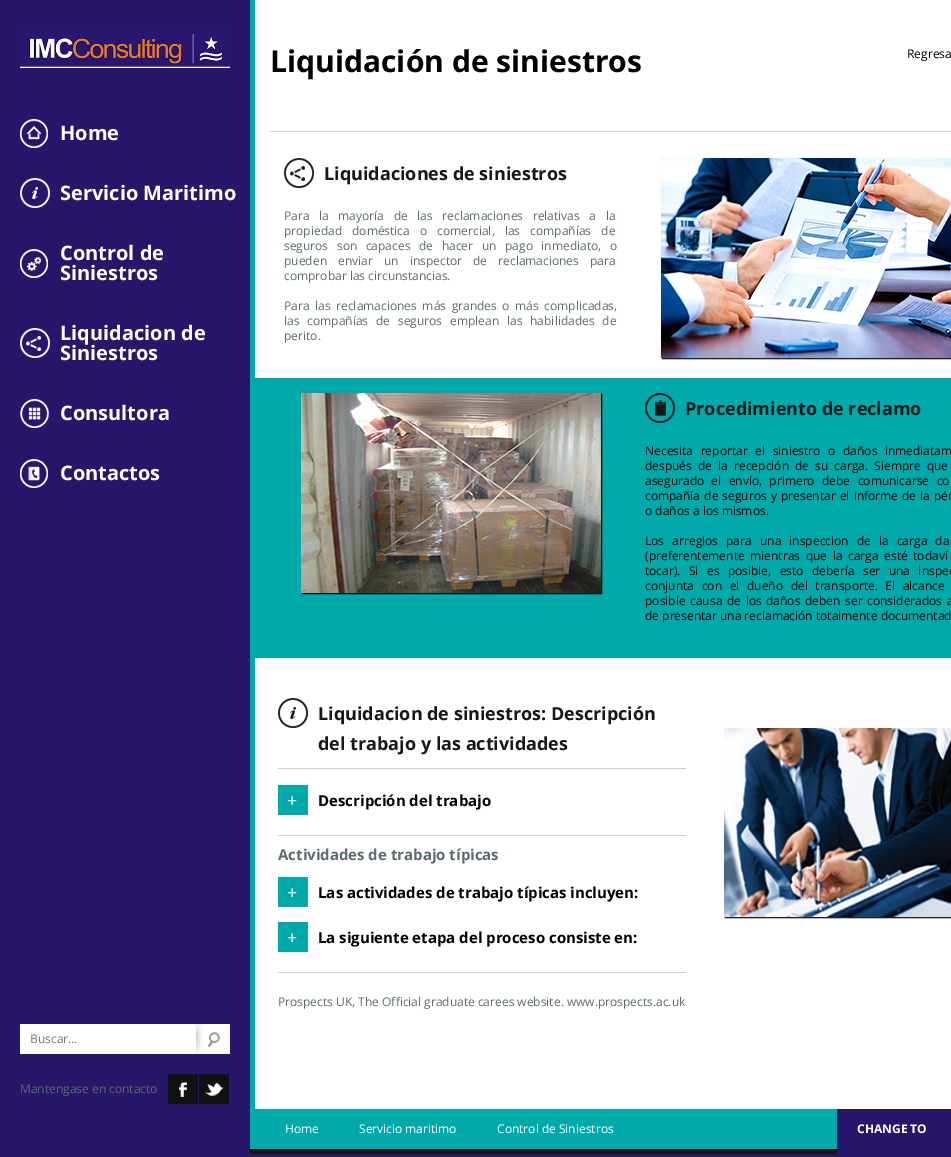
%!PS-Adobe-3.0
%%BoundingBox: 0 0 951 1157
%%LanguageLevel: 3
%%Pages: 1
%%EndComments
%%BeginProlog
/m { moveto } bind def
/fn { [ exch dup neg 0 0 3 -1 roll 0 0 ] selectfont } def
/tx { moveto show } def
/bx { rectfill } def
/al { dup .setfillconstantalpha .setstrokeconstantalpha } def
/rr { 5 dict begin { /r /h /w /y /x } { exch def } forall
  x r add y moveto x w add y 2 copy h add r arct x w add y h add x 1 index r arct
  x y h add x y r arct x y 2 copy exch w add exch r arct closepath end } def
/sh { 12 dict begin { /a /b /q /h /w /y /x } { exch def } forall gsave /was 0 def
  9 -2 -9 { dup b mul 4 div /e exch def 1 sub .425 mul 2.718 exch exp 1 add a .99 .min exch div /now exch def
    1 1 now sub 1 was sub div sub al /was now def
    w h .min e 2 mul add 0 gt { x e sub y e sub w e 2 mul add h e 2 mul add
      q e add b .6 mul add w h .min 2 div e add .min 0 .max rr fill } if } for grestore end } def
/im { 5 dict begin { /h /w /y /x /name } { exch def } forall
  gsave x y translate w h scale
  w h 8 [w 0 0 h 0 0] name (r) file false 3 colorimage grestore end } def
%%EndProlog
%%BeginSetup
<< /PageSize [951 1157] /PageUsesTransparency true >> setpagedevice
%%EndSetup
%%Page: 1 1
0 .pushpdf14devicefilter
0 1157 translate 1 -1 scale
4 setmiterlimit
0.157 0.086 0.42 setrgbcolor
0 0 951 1157 bx
(image0.raw) 20 30 210 38 im
(image1.raw) 20 119 28 29 im
/OpenSans-Bold 20 fn
1 setgray
(Home) 60 140 tx
(image2.raw) 20 178 30 30 im
(Servicio Maritimo) 60 200 tx
(image3.raw) 20 249 28 29 im
(Control de) 60 260 tx
(Siniestros) 60 280 tx
(image4.raw) 20 328 30 30 im
(Liquidacion de) 60 340 tx
(Siniestros) 60 360 tx
(image5.raw) 20 399 29 29 im
(Consultora) 60 420 tx
(image6.raw) 20 459 28 29 im
(Contactos) 60 480 tx
(image7.raw) 20 1024 210 30 im
/OpenSans-Regular 12 fn
0.459 setgray
(Buscar...) 30 1043 tx
0.357 0.416 0.435 setrgbcolor
(Mantengase en contacto) 20 1093 tx
(image8.raw) 168 1074 30 30 im
(image9.raw) 199 1074 30 30 im
0 0.667 0.667 setrgbcolor
250 0 5 1149 bx
1 setgray
255 0 696 1109 bx
/OpenSans-Bold 30 fn
0 setgray
(Liquidación de siniestros) 270 72 tx
/OpenSans-Regular 12 fn
(Regresa) 907 58 tx
0.808 0.808 0.812 setrgbcolor
270 131 681 1 bx
(image10.raw) 284 158 30 30 im
/OpenSans-Bold 18 fn
0.082 0.09 0.098 setrgbcolor
(Liquidaciones de siniestros) 324 180 tx
/OpenSans-Regular 12 fn
0.357 0.416 0.435 setrgbcolor
284 220 m 6.5 0 32 (Para la mayoría de las reclamaciones relativas a la) widthshow
284 235 m 7 0 32 (propiedad doméstica o comercial, las compañías de) widthshow
284 250 m 5.5 0 32 (seguros son capaces de hacer un pago inmediato, o) widthshow
284 265 m 8 0 32 (pueden enviar un inspector de reclamaciones para) widthshow
(comprobar las circunstancias.) 284 280 tx
284 310 m 2.5 0 32 (Para las reclamaciones más grandes o más complicadas,) widthshow
284 325 m 4.75 0 32 (las compañías de seguros emplean las habilidades de) widthshow
(perito.) 284 340 tx
0 setgray
662 159 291 200 0 0.5 1 sh
(image11.raw) 661 158 290 200 im
0 0.667 0.667 setrgbcolor
255 378 696 280 bx
0 setgray
302 394 300 200 0 0.5 1 sh
(image12.raw) 301 393 300 200 im
(image13.raw) 645 393 30 30 im
/OpenSans-Bold 18 fn
0.082 0.09 0.098 setrgbcolor
(Procedimiento de reclamo) 685 415 tx
/OpenSans-Regular 12 fn
0 setgray
645 455 m 4.5 0 32 (Necesita reportar el siniestro o daños inmediatam) widthshow
645 470 m 3 0 32 (después de la recepción de su carga. Siempre que) widthshow
645 485 m 4.25 0 32 (asegurado el envío, primero debe comunicarse co) widthshow
645 500 m 1 0 32 (compañía de seguros y presentar el informe de la pér) widthshow
(o daños a los mismos.) 645 515 tx
645 545 m 5 0 32 (Los arreglos para una inspeccion de la carga da) widthshow
645 560 m 2.5 0 32 (\(preferentemente mientras que la carga esté todaví) widthshow
645 575 m 5.25 0 32 (tocar\). Si es posible, esto debería ser una inspec) widthshow
645 590 m 4.5 0 32 (conjunta con el dueño del transporte. El alcance) widthshow
645 605 m 1.5 0 32 (posible causa de los daños deben ser considerados a) widthshow
(de presentar una reclamación totalmente documentad) 645 620 tx
(image14.raw) 278 698 30 30 im
/OpenSans-Bold 18 fn
0.082 0.09 0.098 setrgbcolor
(Liquidacion de siniestros: Descripción) 318 720 tx
(del trabajo y las actividades) 318 750 tx
0.808 0.808 0.812 setrgbcolor
278 768 408 1 bx
0 0.667 0.667 setrgbcolor
278 785 30 30 bx
(image15.raw) 288 796 9 9 im
/OpenSans-Bold 15 fn
0 setgray
(Descripción del trabajo) 318 806 tx
0.808 0.808 0.812 setrgbcolor
278 835 408 1 bx
0.357 0.416 0.435 setrgbcolor
(Actividades de trabajo típicas) 278 860 tx
0 0.667 0.667 setrgbcolor
278 877 30 30 bx
(image15.raw) 288 888 9 9 im
0 setgray
(Las actividades de trabajo típicas incluyen:) 318 898 tx
0 0.667 0.667 setrgbcolor
278 922 30 30 bx
(image15.raw) 288 933 9 9 im
0 setgray
(La siguiente etapa del proceso consiste en:) 318 943 tx
0.808 0.808 0.812 setrgbcolor
278 972 408 1 bx
/OpenSans-Regular 12 fn
0.357 0.416 0.435 setrgbcolor
(Prospects UK, The Official graduate carees website. www.prospects.ac.uk) 278 1006 tx
0 setgray
725 729 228 189 0 0.5 1 sh
(image16.raw) 724 728 227 189 im
0 0.667 0.667 setrgbcolor
255 1109 582 40 bx
0.086 0.09 0.098 setrgbcolor
250 1149 587 5 bx
1 setgray
(Home) 285 1133 tx
(Servicio maritimo) 359 1133 tx
(Control de Siniestros) 497 1133 tx
/OpenSans-Bold 12 fn
(CHANGE TO) 857 1133 tx
.poppdf14devicefilter showpage
%%EOF
